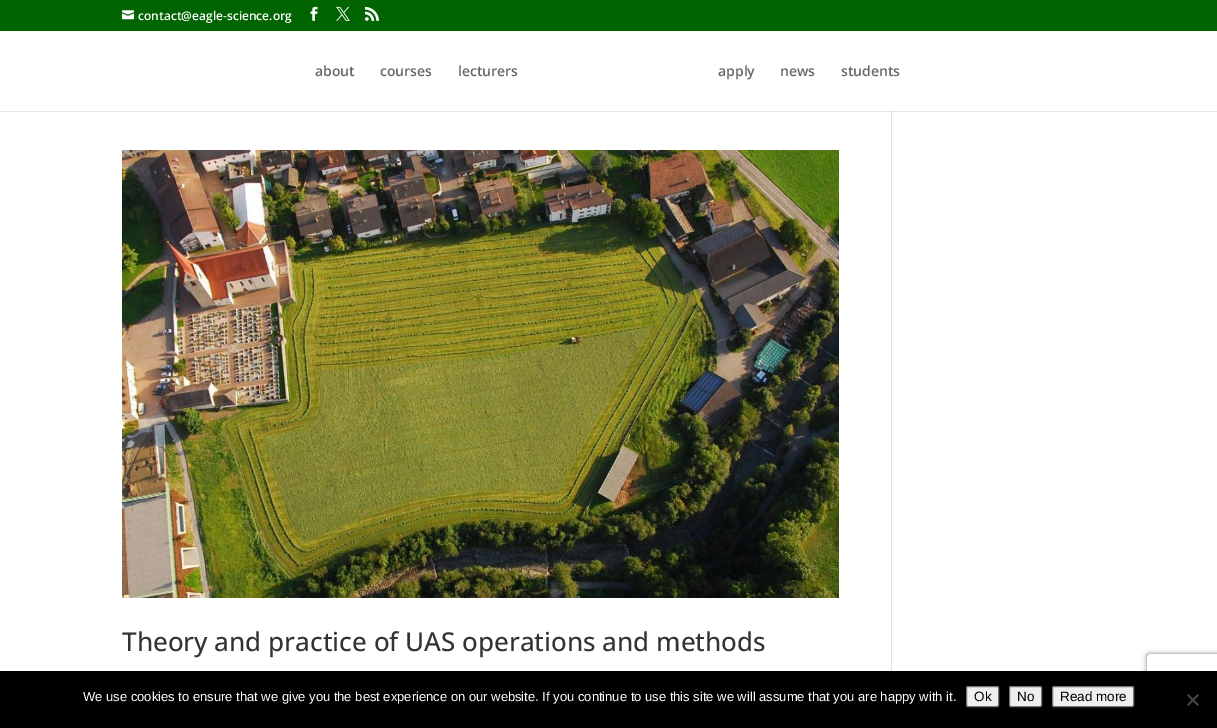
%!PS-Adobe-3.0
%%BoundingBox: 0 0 1217 728
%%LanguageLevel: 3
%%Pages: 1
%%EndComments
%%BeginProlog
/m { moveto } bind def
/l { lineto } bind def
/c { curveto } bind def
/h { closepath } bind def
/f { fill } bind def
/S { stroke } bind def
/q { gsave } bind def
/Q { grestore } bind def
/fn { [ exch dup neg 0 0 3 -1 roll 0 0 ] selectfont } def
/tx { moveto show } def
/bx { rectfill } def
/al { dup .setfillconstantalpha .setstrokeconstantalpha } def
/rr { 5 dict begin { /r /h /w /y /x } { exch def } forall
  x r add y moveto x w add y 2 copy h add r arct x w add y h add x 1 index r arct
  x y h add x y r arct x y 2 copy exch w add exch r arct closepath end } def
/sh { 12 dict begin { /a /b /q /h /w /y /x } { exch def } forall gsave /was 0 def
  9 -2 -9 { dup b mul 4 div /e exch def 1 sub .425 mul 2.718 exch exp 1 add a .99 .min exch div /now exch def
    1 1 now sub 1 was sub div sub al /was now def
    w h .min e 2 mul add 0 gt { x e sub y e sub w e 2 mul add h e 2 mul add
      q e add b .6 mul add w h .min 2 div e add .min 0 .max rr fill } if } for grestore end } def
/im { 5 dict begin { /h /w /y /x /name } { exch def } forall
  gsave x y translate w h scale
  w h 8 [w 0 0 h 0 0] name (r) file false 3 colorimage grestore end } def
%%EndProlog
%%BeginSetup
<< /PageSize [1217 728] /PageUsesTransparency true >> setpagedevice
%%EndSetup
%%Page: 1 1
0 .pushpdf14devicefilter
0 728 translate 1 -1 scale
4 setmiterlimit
1 setgray
0 0 1217 728 bx
0.902 setgray
0 111 1217 1 bx
0 0.392 0 setrgbcolor
0 0 1217 31 bx
(image0.raw) 122 10 12 10 im
/OpenSans-SemiBold 12 fn
1 setgray
(contact@eagle-science.org) 138 20 tx
(image1.raw) 310 6 8 15 im
(image2.raw) 336 6 14 15 im
(image3.raw) 365 6 14 15 im
/OpenSans-SemiBold 14 fn
0.4 setgray
(about) 315 76 tx
(courses) 380 76 tx
(lecturers) 458 76 tx
(apply) 718 76 tx
(news) 780 76 tx
(students) 841 76 tx
(image4.raw) 122 150 717 448 im
/OpenSans-Medium 26 fn
0.2 setgray
(Theory and practice of UAS operations and methods) 122 651 tx
0.886 setgray
891 112 1 559 bx
0.796 setgray
891 111 1 1 bx
q
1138 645 m 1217 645 l 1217 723 l 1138 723 l h 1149 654 m 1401 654 l 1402 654 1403 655 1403 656 c 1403 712 l 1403 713 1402 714 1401 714 c 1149 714 l 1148 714 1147 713 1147 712 c 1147 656 l 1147 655 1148 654 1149 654 c h eoclip newpath
0.502 setgray
1147 654 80 60 2 2.5 1 sh
Q
0 setgray
0 671 1217 57 bx
/LiberationSans-Regular 13 fn
1 setgray
(We use cookies to ensure that we give you the best experience on our website. If you continue to use this site we will assume that you are happy with it.) 83 701 tx
0.937 setgray
966.5 686.5 32 20 1.5 rr q f Q
0.463 setgray
S
/LiberationSans-Regular 13.5 fn
0 setgray
(Ok) 974 701 tx
0.937 setgray
1009.5 686.5 32 20 1.5 rr q f Q
0.463 setgray
S
0 setgray
(No) 1017 701 tx
0.937 setgray
1052.5 686.5 81 20 1.5 rr q f Q
0.463 setgray
S
0 setgray
(Read more) 1060 701 tx
0.251 setgray
1197.5 694 m 1199 695.5 l 1188.5 706 l 1187 704.5 l h f
1187 695.5 m 1188.5 694 l 1199 704.5 l 1197.5 706 l h f
.poppdf14devicefilter showpage
%%EOF
